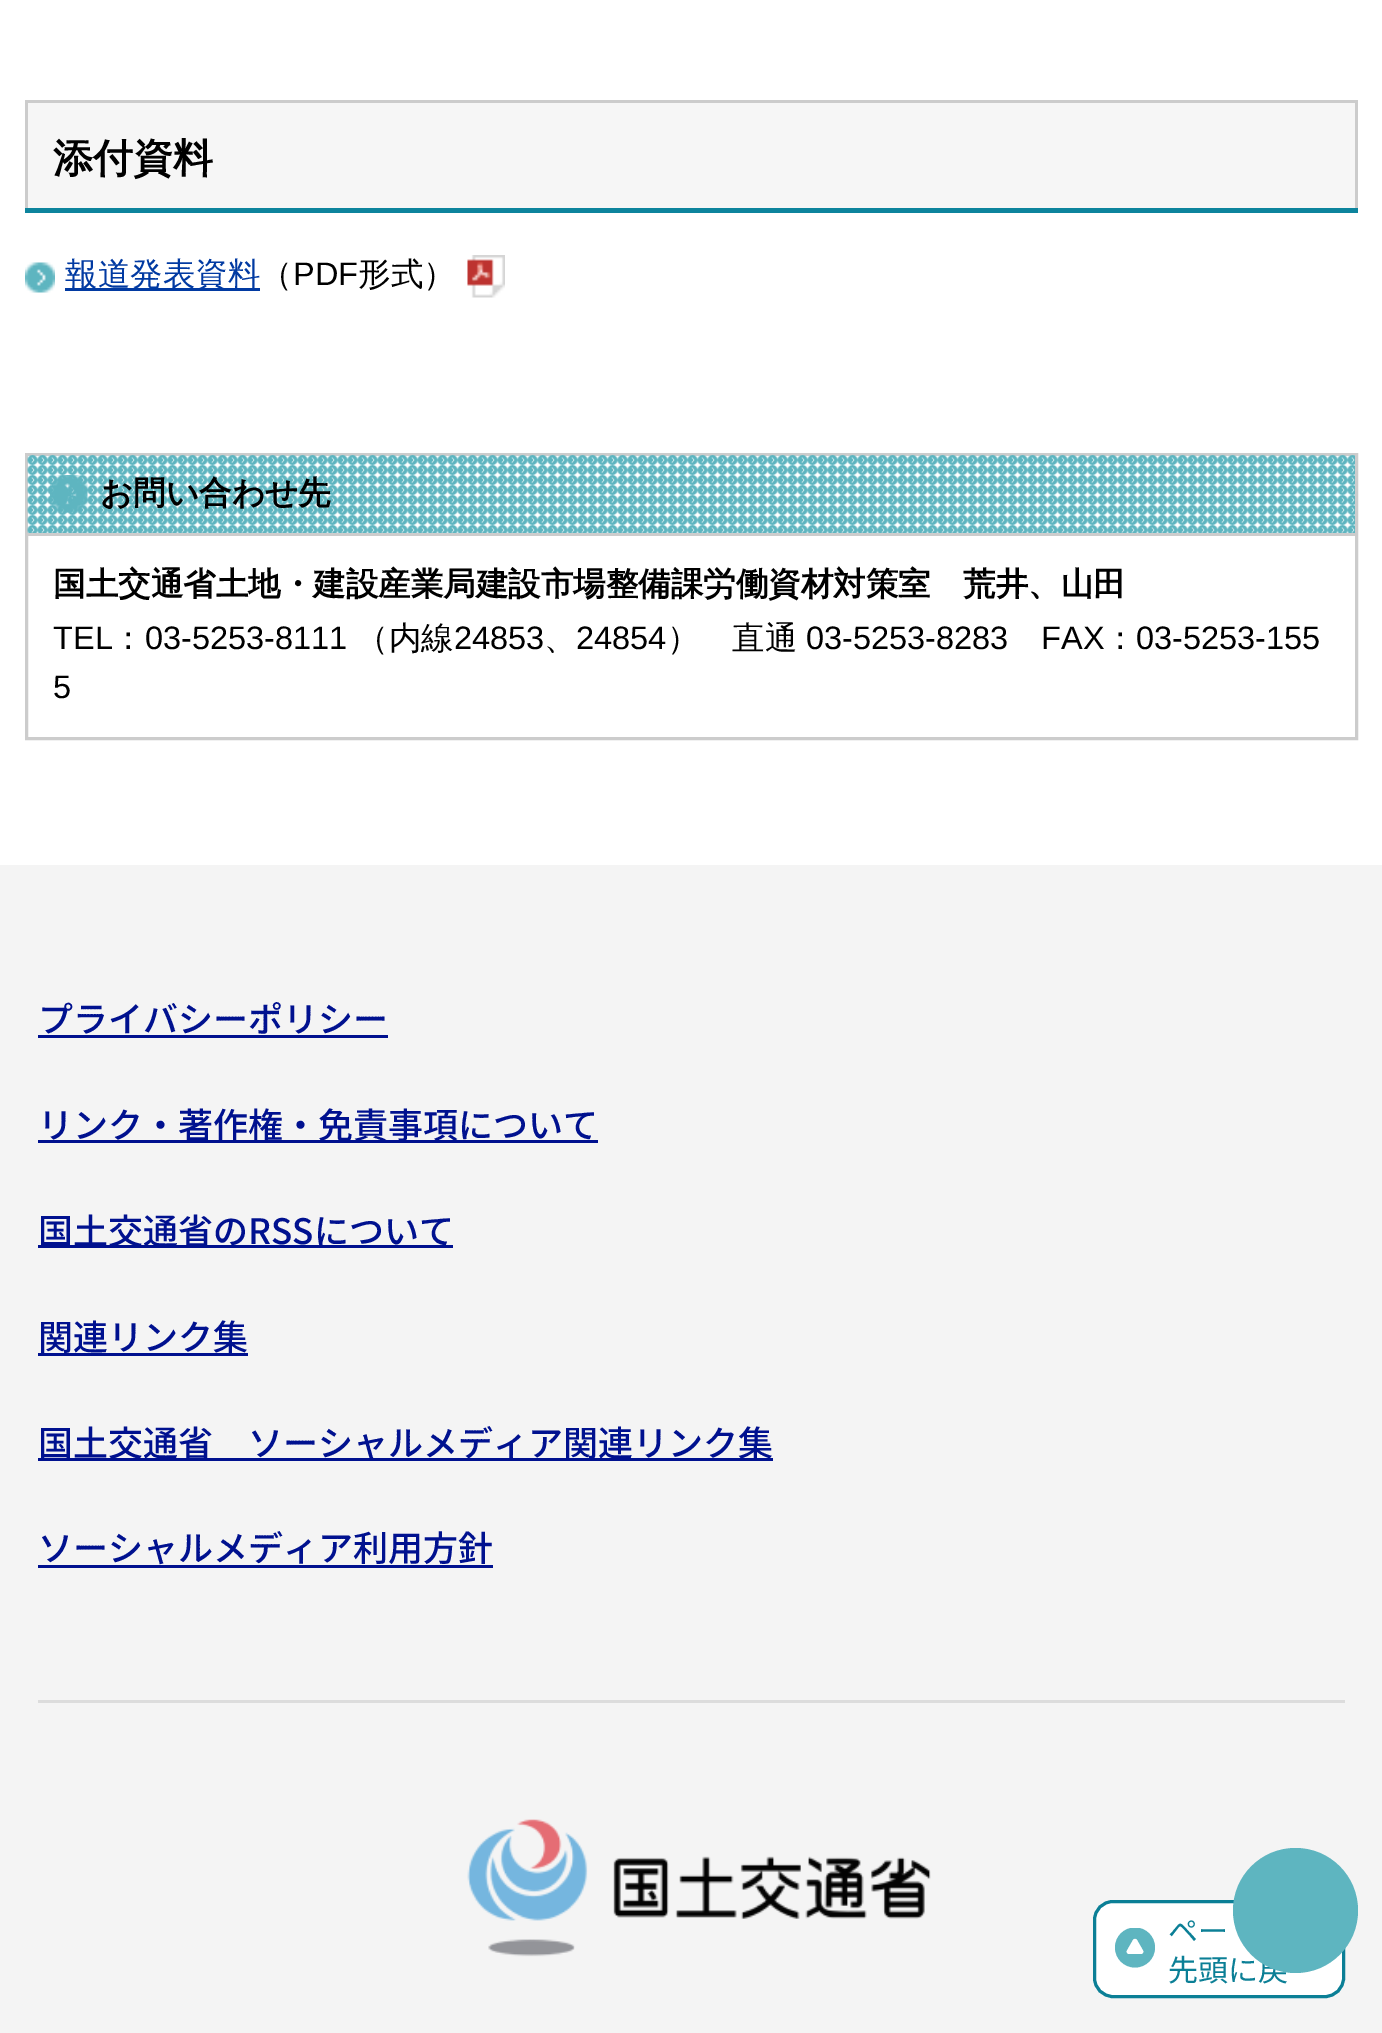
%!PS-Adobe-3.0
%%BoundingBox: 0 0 1382 2033
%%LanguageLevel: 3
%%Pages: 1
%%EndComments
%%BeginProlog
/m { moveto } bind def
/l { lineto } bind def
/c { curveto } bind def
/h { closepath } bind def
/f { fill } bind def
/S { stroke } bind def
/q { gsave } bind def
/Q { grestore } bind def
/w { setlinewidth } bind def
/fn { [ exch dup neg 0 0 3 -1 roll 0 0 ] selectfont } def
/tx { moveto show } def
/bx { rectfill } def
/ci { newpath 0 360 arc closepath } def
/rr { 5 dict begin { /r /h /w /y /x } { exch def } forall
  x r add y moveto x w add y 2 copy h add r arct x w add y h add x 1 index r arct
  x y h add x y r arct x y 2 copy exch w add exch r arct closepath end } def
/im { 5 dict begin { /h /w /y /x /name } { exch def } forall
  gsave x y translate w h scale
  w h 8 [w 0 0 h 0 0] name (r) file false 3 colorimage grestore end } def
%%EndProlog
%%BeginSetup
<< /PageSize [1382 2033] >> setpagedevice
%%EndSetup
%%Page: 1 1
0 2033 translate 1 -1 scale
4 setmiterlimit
1 setgray
0 0 1382 2033 bx
0.051 0.518 0.616 setrgbcolor
25 208 1333 5 bx
0.965 setgray
28 103 1327 105 bx
0.8 setgray
25 100 1333 3 bx
1355 100 3 108 bx
25 100 3 108 bx
/WenQuanYiZenHei-Bold 40 fn
0 setgray
(添付資料) 53 172 tx
(image0.raw) 25 262 30 31 im
0.004 0.227 0.635 setrgbcolor
65 288 195 3 bx
/WenQuanYiZenHei-Medium 32.5 fn
(報道発表資料) 65 285 tx
0 setgray
(（) 260 285 tx
/LiberationSans-Regular 32.5 fn
(PDF) 293 285 tx
/WenQuanYiZenHei-Medium 32.5 fn
(形式）) 358 285 tx
(image1.raw) 467 255 38 43 im
0.8 setgray
3 w
26.5 454.5 1330 284 rectstroke
(image2.raw) 27 455 1328 78 im
28 533 1327 3 bx
(image3.raw) 50 475 38 38 im
/WenQuanYiZenHei-Bold 32.5 fn
0 setgray
(お問い合わせ先) 100 504 tx
(国土交通省土地・建設産業局建設市場整備課労働資材対策室　荒井、山田) 53 595 tx
/LiberationSans-Regular 32.5 fn
(TEL) 53 649 tx
/WenQuanYiZenHei-Medium 32.5 fn
(：) 112 649 tx
/LiberationSans-Regular 32.5 fn
(03-5253-8111) 145 649 tx
/WenQuanYiZenHei-Medium 32.5 fn
(（内線) 356 649 tx
/LiberationSans-Regular 32.5 fn
(24853) 454 649 tx
/WenQuanYiZenHei-Medium 32.5 fn
(、) 544 649 tx
/LiberationSans-Regular 32.5 fn
(24854) 576 649 tx
/WenQuanYiZenHei-Medium 32.5 fn
(）　直通) 667 649 tx
/LiberationSans-Regular 32.5 fn
(03-5253-8283) 806 649 tx
(FAX) 1041 649 tx
/WenQuanYiZenHei-Medium 32.5 fn
(：) 1104 649 tx
/LiberationSans-Regular 32.5 fn
(03-5253-155) 1136 649 tx
(5) 53 698 tx
0.957 setgray
0 865 1382 1168 bx
1 setgray
1093 1900 252 98 20 rr f
q
1115 1928 40 40 rectclip
0.369 0.71 0.753 setrgbcolor
1135 1947.5 20 ci f
Q
1133 1940 m 1134 1938.5 1136 1938.5 1137 1940 c 1143 1950.5 l 1144 1952 1142.5 1954 1141 1954 c 1129 1954 l 1127.5 1954 1126 1952 1127 1950.5 c h f
0.043 0.498 0.588 setrgbcolor
1094.5 1901.5 249 95 18.5 rr S
/NotoSansJP-Regular 30 fn
(先頭に戻) 1168 1981 tx
0.369 0.71 0.753 setrgbcolor
1295.5 1910.5 62.5 ci f
0.863 setgray
38 1700 1307 3 bx
/NotoSansJP-Medium 35 fn
0 0.067 0.561 setrgbcolor
(プライバシーポリシー) 38 1032 tx
38 1035 350 3 bx
38 1140 560 3 bx
(リンク・著作権・免責事項について) 38 1138 tx
38 1245 415 3 bx
(国土交通省のRSSについて) 38 1244 tx
(関連リンク集) 38 1350 tx
38 1353 210 3 bx
38 1458 735 3 bx
(国土交通省　ソーシャルメディア関連リンク集) 38 1456 tx
(ソーシャルメディア利用方針) 38 1561 tx
38 1565 455 3 bx
(image4.raw) 467 1819 464 138 im
/NotoSansJP-Regular 30 fn
0.043 0.498 0.588 setrgbcolor
(ペー) 1168 1942 tx
showpage
%%EOF
